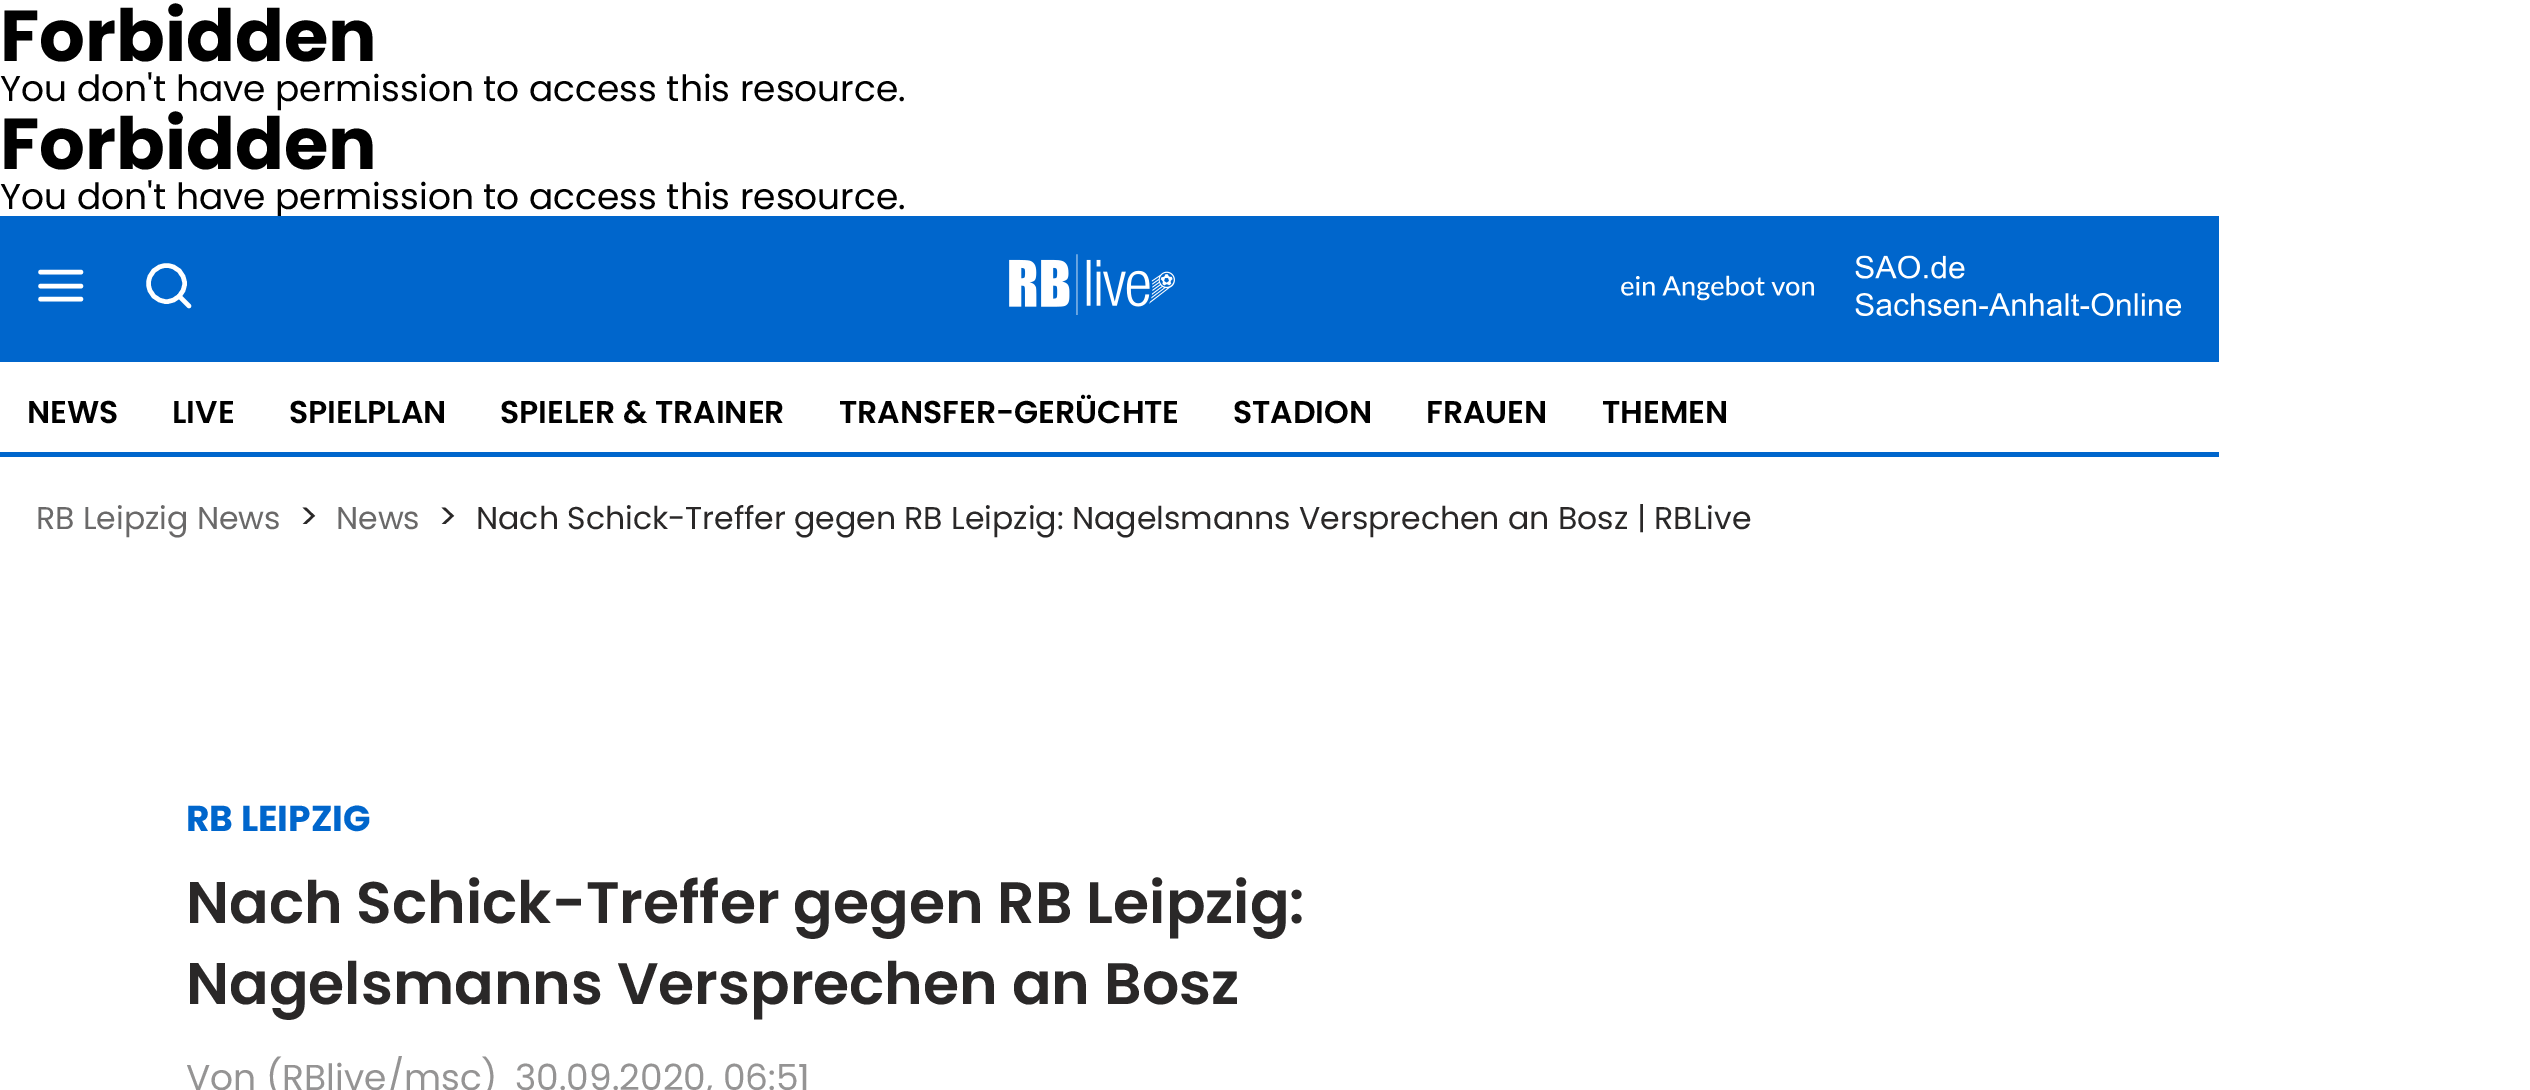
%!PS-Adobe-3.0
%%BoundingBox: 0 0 2530 1090
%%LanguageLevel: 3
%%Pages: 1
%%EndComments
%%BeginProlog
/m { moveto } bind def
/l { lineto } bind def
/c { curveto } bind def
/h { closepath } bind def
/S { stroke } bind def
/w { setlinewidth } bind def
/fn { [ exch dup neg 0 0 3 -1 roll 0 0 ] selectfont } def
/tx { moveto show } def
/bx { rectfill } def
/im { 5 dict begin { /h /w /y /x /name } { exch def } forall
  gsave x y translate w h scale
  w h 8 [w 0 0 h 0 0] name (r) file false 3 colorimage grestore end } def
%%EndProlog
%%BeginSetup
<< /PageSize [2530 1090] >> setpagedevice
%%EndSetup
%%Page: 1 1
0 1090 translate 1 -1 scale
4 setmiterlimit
1 setgray
0 0 2530 1090 bx
/Poppins-Bold 72 fn
0 setgray
(Forbidden) 0 61 tx
/Poppins-Regular 36 fn
(You don't have permission to access this resource.) 0 101 tx
/Poppins-Bold 72 fn
(Forbidden) 0 169 tx
/Poppins-Regular 36 fn
(You don't have permission to access this resource.) 0 209 tx
0 0.4 0.8 setrgbcolor
0 216 2219 146 bx
1 setgray
4.5 w
1 setlinecap
1 setlinejoin
40.5 286 m 81 286 l 40.5 272 m 81 272 l 40.5 299 m 81 299 l S
166.5 301.5 m 176.5 301.5 184.5 293.5 184.5 283.5 c 184.5 273.5 176.5 265.5 166.5 265.5 c 156.5 265.5 148.5 273.5 148.5 283.5 c 148.5 293.5 156.5 301.5 166.5 301.5 c h 189 306 m 179 296 l S
(image0.raw) 1009 254 166 61 im
(image1.raw) 1621 255 560 61 im
0 0.4 0.8 setrgbcolor
0 452 2219 5 bx
/Poppins-SemiBold 31.5 fn
0 setgray
(NEWS) 27 423 tx
(LIVE) 172 423 tx
(SPIELPLAN) 289 423 tx
(SPIELER & TRAINER) 500 423 tx
(TRANSFER-GERÜCHTE) 839 423 tx
(STADION) 1233 423 tx
(FRAUEN) 1426 423 tx
(THEMEN) 1602 423 tx
/Poppins-Regular 31.5 fn
0.416 0.412 0.412 setrgbcolor
(RB Leipzig News) 36 529 tx
/Poppins-Regular 36 fn
0.165 0.157 0.157 setrgbcolor
(>) 299 529 tx
/Poppins-Regular 31.5 fn
0.416 0.412 0.412 setrgbcolor
(News) 336 529 tx
/Poppins-Regular 36 fn
0.165 0.157 0.157 setrgbcolor
(>) 438 529 tx
/Poppins-Regular 31.5 fn
(Nach Schick-Treffer gegen RB Leipzig: Nagelsmanns Versprechen an Bosz | RBLive) 476 529 tx
/Poppins-Bold 36 fn
0 0.4 0.8 setrgbcolor
(RB LEIPZIG) 186 831 tx
/Poppins-SemiBold 58.5 fn
0.165 0.157 0.157 setrgbcolor
(Nach Schick-Treffer gegen RB Leipzig:) 186 923 tx
(Nagelsmanns Versprechen an Bosz) 186 1004 tx
/Poppins-Regular 36 fn
0.584 0.58 0.58 setrgbcolor
(Von \(RBlive/msc\)) 186 1090 tx
(30.09.2020, 06:51) 515 1090 tx
showpage
%%EOF
